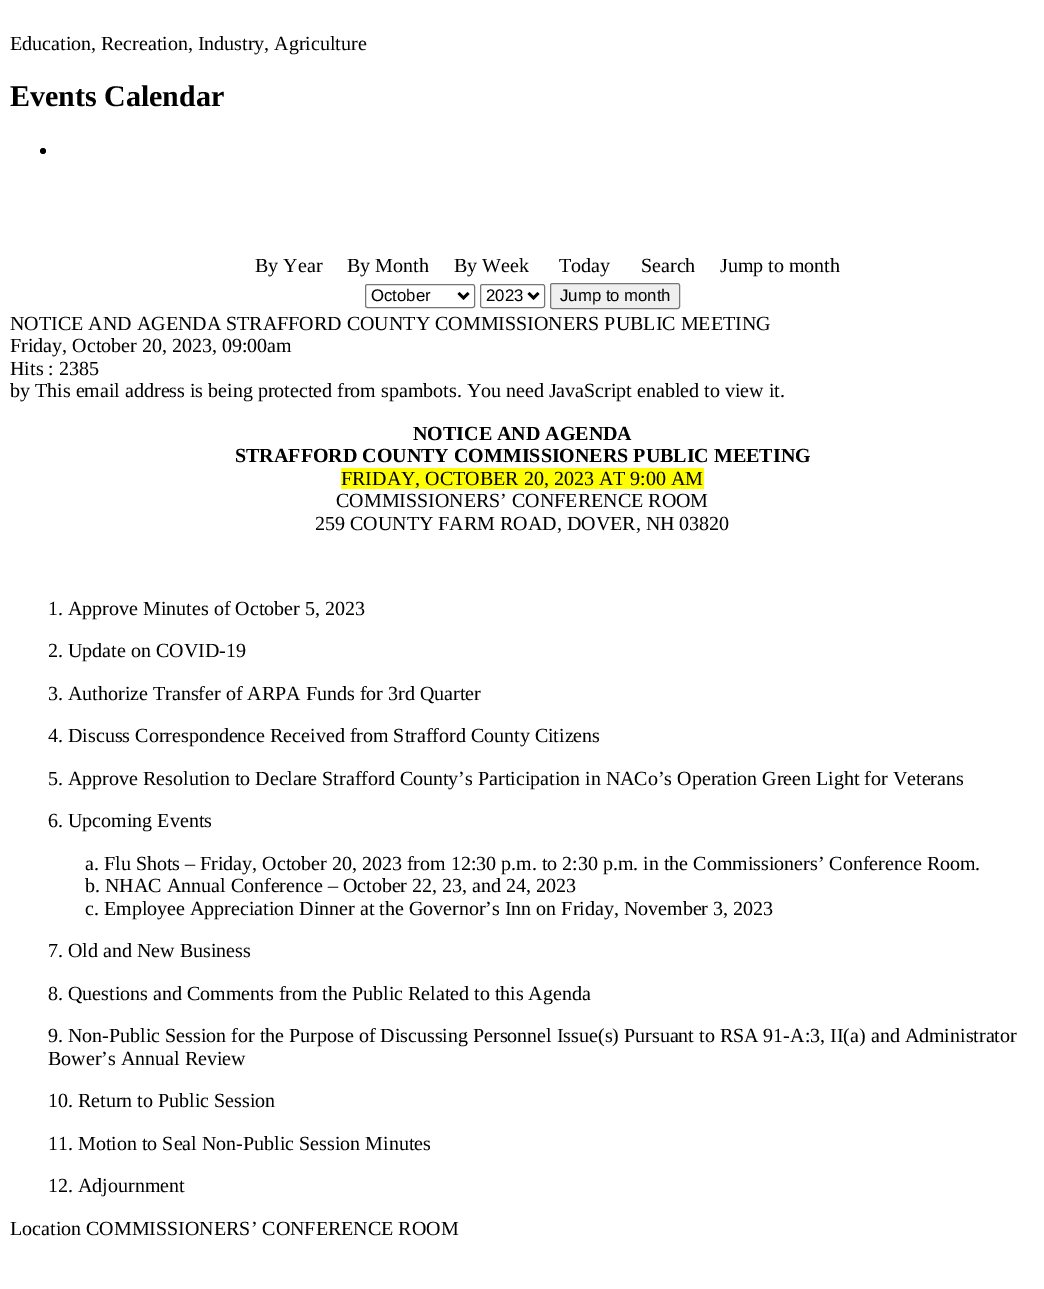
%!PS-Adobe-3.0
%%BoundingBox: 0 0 1044 1289
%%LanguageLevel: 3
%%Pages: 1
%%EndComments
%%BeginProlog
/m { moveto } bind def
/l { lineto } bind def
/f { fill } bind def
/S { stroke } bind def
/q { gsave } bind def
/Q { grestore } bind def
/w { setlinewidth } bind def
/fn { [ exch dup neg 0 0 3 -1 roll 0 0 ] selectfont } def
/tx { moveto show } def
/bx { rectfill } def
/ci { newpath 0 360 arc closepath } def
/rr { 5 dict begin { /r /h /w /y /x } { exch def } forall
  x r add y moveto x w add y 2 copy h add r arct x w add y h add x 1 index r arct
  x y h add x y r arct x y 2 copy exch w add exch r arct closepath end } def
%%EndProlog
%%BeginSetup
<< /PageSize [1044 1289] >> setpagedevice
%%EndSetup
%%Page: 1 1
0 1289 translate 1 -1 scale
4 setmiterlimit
1 setgray
0 0 1044 1289 bx
/LiberationSerif-Regular 20 fn
0 setgray
(Education, Recreation, Industry, Agriculture) 10 50 tx
/LiberationSerif-Bold 30 fn
(Events Calendar) 10 106 tx
43 151 3 ci f
/LiberationSerif-Regular 20 fn
(By Year) 255 272 tx
(By Month) 347 272 tx
(By Week) 454 272 tx
(Today) 559 272 tx
(Search) 641 272 tx
(Jump to month) 720 272 tx
0.463 setgray
365.5 284.5 109 23 2 rr S
0 setgray
2.5 w
458.5 293 m 463.5 298 l 468.5 293 l S
/LiberationSans-Regular 16.75 fn
(October) 371 301 tx
0.463 setgray
1 w
480.5 284.5 64 23 2 rr S
0 setgray
2.5 w
528.5 293 m 533.5 298 l 538.5 293 l S
(2023) 486 301 tx
0.937 setgray
550.5 283.5 129 25 2 rr q f Q
0.463 setgray
1 w
S
0 setgray
(Jump to month) 560 301 tx
/LiberationSerif-Regular 20 fn
(NOTICE AND AGENDA STRAFFORD COUNTY COMMISSIONERS PUBLIC MEETING) 10 330 tx
(Friday, October 20, 2023, 09:00am) 10 352 tx
(Hits : 2385) 10 375 tx
(by This email address is being protected from spambots. You need JavaScript enabled to view it.) 10 397 tx
/LiberationSerif-Bold 20 fn
(NOTICE AND AGENDA) 413 440 tx
(STRAFFORD COUNTY COMMISSIONERS PUBLIC MEETING) 235 462 tx
1 1 0 setrgbcolor
341 468 363 21 bx
/LiberationSerif-Regular 20 fn
0 setgray
(FRIDAY, OCTOBER 20, 2023 AT 9:00 AM) 341 485 tx
(COMMISSIONERS’ CONFERENCE ROOM) 336 507 tx
(259 COUNTY FARM ROAD, DOVER, NH 03820) 315 530 tx
(1. Approve Minutes of October 5, 2023) 48 615 tx
(2. Update on COVID-19) 48 657 tx
(3. Authorize Transfer of ARPA Funds for 3rd Quarter) 48 700 tx
(4. Discuss Correspondence Received from Strafford County Citizens) 48 742 tx
(5. Approve Resolution to Declare Strafford County’s Participation in NACo’s Operation Green Light for Veterans) 48 785 tx
(6. Upcoming Events) 48 827 tx
(a. Flu Shots – Friday, October 20, 2023 from 12:30 p.m. to 2:30 p.m. in the Commissioners’ Conference Room.) 85 870 tx
(b. NHAC Annual Conference – October 22, 23, and 24, 2023) 85 892 tx
(c. Employee Appreciation Dinner at the Governor’s Inn on Friday, November 3, 2023) 85 915 tx
(7. Old and New Business) 48 957 tx
(8. Questions and Comments from the Public Related to this Agenda) 48 1000 tx
(9. Non-Public Session for the Purpose of Discussing Personnel Issue\(s\) Pursuant to RSA 91-A:3, II\(a\) and Administrator) 48 1042 tx
(Bower’s Annual Review) 48 1065 tx
(10. Return to Public Session) 48 1107 tx
(11. Motion to Seal Non-Public Session Minutes) 48 1150 tx
(12. Adjournment) 48 1192 tx
(Location COMMISSIONERS’ CONFERENCE ROOM) 10 1235 tx
showpage
%%EOF
